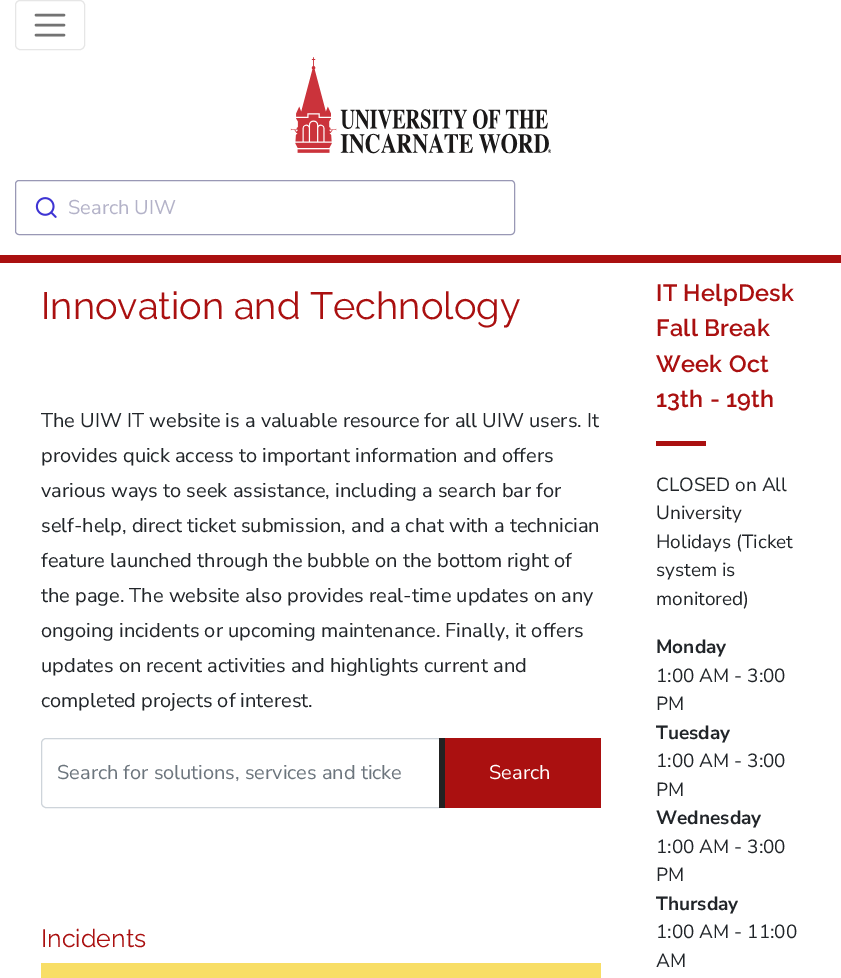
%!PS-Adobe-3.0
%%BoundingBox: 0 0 841 978
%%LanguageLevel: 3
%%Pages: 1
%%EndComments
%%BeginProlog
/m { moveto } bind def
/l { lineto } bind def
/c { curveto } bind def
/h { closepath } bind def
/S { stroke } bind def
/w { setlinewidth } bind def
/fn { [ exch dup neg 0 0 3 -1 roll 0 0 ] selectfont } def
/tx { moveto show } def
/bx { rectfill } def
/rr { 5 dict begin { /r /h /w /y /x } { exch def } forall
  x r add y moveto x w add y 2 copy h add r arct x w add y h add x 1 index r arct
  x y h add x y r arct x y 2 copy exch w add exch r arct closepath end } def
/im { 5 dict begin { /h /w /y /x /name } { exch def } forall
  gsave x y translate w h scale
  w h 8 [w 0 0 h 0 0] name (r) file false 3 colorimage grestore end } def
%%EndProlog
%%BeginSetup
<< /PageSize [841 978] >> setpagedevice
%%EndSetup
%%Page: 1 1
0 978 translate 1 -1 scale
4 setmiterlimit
1 setgray
0 0 841 978 bx
0.667 0.063 0.063 setrgbcolor
0 255 841 8 bx
0.902 setgray
15.5 0.5 69 49 4.5 rr S
0.451 setgray
2.5 w
1 setlinecap
36 15 m 64 15 l 36 25 m 64 25 l 36 35 m 64 35 l S
(image0.raw) 290 57 261 97 im
0.6 0.596 0.71 setrgbcolor
1 w
0 setlinecap
15.5 180.5 499 54 3.5 rr S
(image1.raw) 35 197 22 21 im
/NunitoSans-Regular 20 fn
0.702 0.698 0.784 setrgbcolor
(Search UIW) 68 214 tx
/Raleway-Regular 38 fn
0.667 0.063 0.063 setrgbcolor
(Innovation and Technology) 41 319 tx
/NunitoSans-Regular 20 fn
0.129 0.145 0.161 setrgbcolor
(The UIW IT website is a valuable resource for all UIW users. It) 41 427 tx
(provides quick access to important information and offers) 41 462 tx
(various ways to seek assistance, including a search bar for) 41 497 tx
(self-help, direct ticket submission, and a chat with a technician) 41 532 tx
(feature launched through the bubble on the bottom right of) 41 567 tx
(the page. The website also provides real-time updates on any) 41 602 tx
(ongoing incidents or upcoming maintenance. Finally, it offers) 41 637 tx
(updates on recent activities and highlights current and) 41 672 tx
(completed projects of interest.) 41 707 tx
0.808 0.831 0.855 setrgbcolor
46 738.5 m 439.5 738.5 l 439.5 807.5 l 46 807.5 l 43.5 807.5 41.5 805.5 41.5 803 c 41.5 743 l 41.5 740.5 43.5 738.5 46 738.5 c h S
0.424 0.459 0.49 setrgbcolor
(Search for solutions, services and ticke) 57 779 tx
0.667 0.063 0.063 setrgbcolor
445 738 156 70 bx
0.133 setgray
439 738 6 70 bx
1 setgray
(Search) 489 779 tx
/Raleway-Regular 25 fn
0.667 0.063 0.063 setrgbcolor
(Incidents) 41 947 tx
0.973 0.871 0.4 setrgbcolor
41 963 560 15 bx
/Raleway-SemiBold 23.5 fn
0.667 0.063 0.063 setrgbcolor
656 301 m 0.25 0 (IT HelpDesk) ashow
656 336 m 0.25 0 (Fall Break) ashow
656 372 m 0.25 0 (Week Oct) ashow
656 407 m 0.25 0 (13th - 19th) ashow
656 441 50 5 bx
/NunitoSans-Regular 19 fn
0.129 0.145 0.161 setrgbcolor
(CLOSED on All) 656 491 tx
(University) 656 519 tx
(Holidays \(Ticket) 656 548 tx
(system is) 656 576 tx
(monitored\)) 656 605 tx
/NunitoSans-Bold 19 fn
(Monday) 656 653 tx
/NunitoSans-Regular 19 fn
(1:00 AM - 3:00) 656 682 tx
(PM) 656 710 tx
/NunitoSans-Bold 19 fn
(Tuesday) 656 739 tx
/NunitoSans-Regular 19 fn
(1:00 AM - 3:00) 656 767 tx
(PM) 656 796 tx
/NunitoSans-Bold 19 fn
(Wednesday) 656 824 tx
/NunitoSans-Regular 19 fn
(1:00 AM - 3:00) 656 853 tx
(PM) 656 881 tx
/NunitoSans-Bold 19 fn
(Thursday) 656 910 tx
/NunitoSans-Regular 19 fn
(1:00 AM - 11:00) 656 938 tx
(AM) 656 967 tx
showpage
%%EOF
